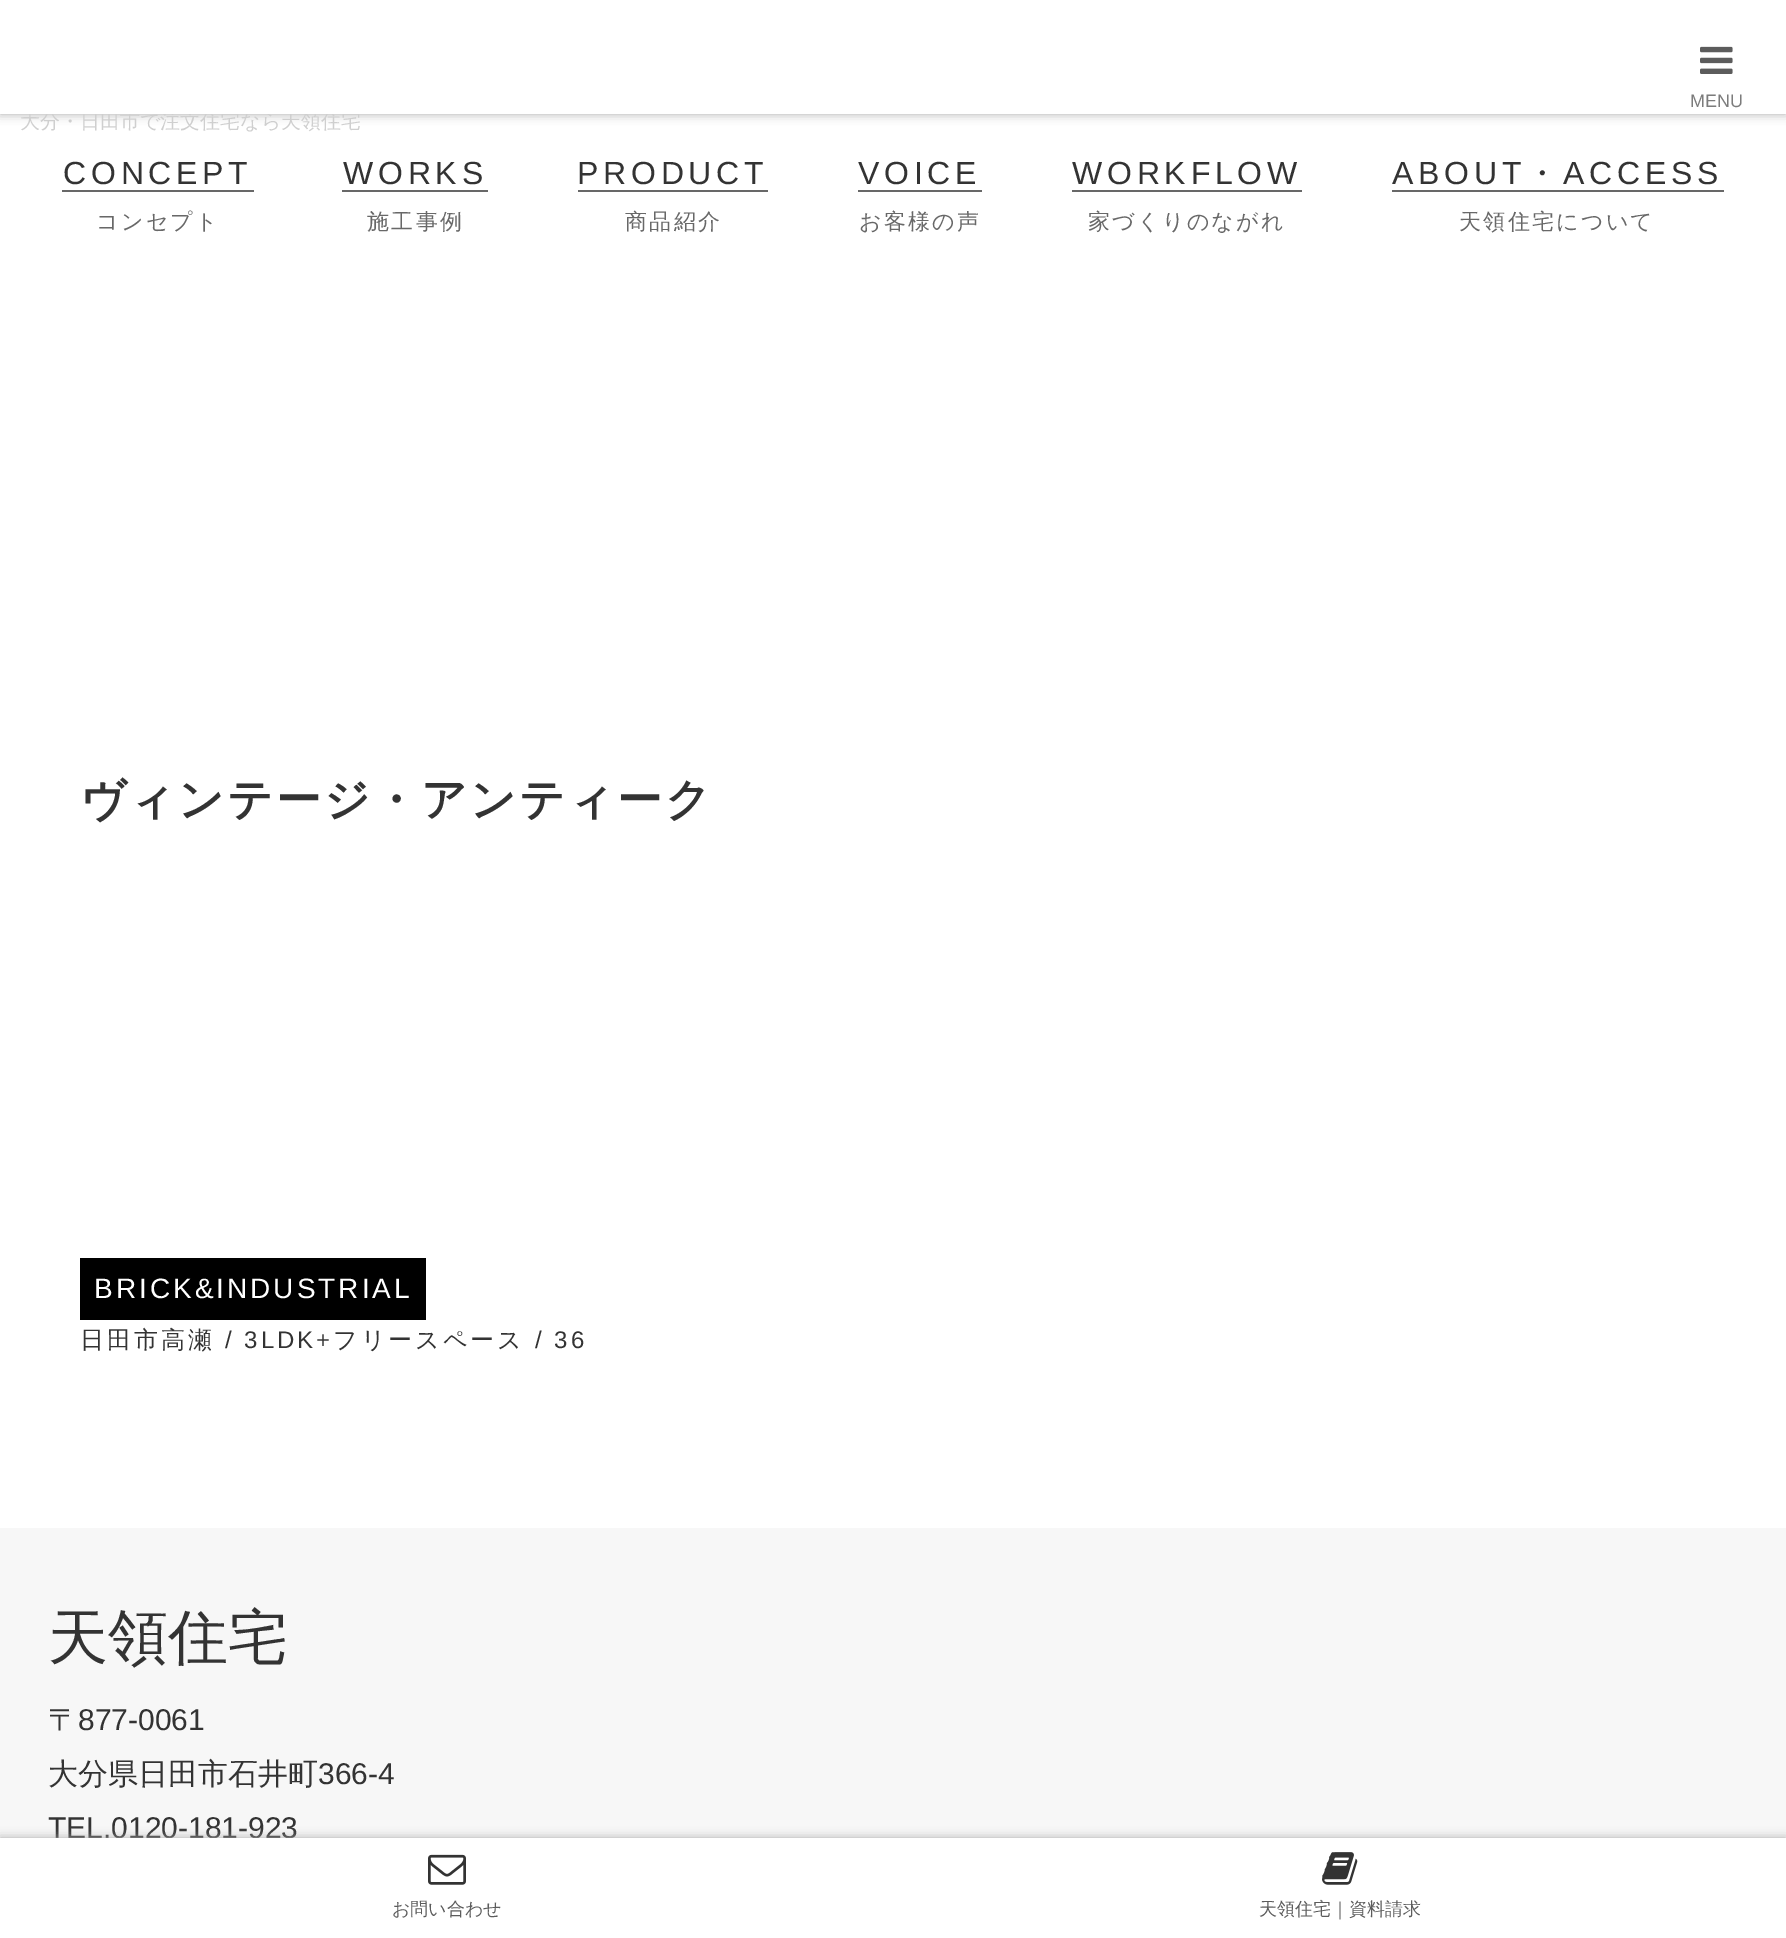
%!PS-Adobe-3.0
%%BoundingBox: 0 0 1786 1938
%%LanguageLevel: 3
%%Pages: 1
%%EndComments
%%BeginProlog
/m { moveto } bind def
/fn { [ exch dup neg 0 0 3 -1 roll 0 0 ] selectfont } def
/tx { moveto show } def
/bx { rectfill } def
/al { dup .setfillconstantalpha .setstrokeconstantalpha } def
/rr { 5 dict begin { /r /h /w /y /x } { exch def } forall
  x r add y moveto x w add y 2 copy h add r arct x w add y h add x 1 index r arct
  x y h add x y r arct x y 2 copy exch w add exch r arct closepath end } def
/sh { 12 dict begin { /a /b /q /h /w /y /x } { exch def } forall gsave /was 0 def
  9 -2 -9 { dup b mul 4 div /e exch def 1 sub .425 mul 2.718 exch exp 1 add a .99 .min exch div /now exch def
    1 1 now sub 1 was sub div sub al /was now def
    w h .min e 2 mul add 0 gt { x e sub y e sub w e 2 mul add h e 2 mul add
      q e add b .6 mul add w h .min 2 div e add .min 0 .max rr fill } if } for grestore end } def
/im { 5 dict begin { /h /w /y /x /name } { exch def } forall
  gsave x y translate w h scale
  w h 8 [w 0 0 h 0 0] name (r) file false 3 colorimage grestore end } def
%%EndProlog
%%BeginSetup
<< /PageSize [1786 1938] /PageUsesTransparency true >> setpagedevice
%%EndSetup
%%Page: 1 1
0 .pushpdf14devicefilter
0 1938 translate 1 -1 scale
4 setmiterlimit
1 setgray
0 0 1786 1938 bx
0.663 setgray
0 0 1786 114 0 5 1 sh
/WenQuanYiZenHei-Medium 20 fn
0.812 setgray
(大分・日田市で注文住宅なら天領住宅) 20 128 tx
1 setgray
0 0 1786 114 bx
(image0.raw) 1700 46 33 28 im
/LiberationSans-Regular 18 fn
0.486 setgray
(MENU) 1690 107 tx
/LiberationSans-Regular 32 fn
0.2 setgray
63 184 m 4.75 0 (CONCEPT) ashow
0.408 setgray
62 190 192 2 bx
/WenQuanYiZenHei-Medium 22 fn
96 229 m 2.25 0 (コンセプト) ashow
/LiberationSans-Regular 32 fn
0.2 setgray
343 184 m 4.75 0 (WORKS) ashow
0.408 setgray
342 190 146 2 bx
/WenQuanYiZenHei-Medium 22 fn
367 229 m 2.25 0 (施工事例) ashow
/LiberationSans-Regular 32 fn
0.2 setgray
577 184 m 4.75 0 (PRODUCT) ashow
0.408 setgray
578 190 190 2 bx
/WenQuanYiZenHei-Medium 22 fn
625 229 m 2.25 0 (商品紹介) ashow
/LiberationSans-Regular 32 fn
0.2 setgray
858 184 m 4.75 0 (VOICE) ashow
0.408 setgray
858 190 124 2 bx
/WenQuanYiZenHei-Medium 22 fn
859 229 m 2.25 0 (お客様の声) ashow
/LiberationSans-Regular 32 fn
0.2 setgray
1072 184 m 4.75 0 (WORKFLOW) ashow
0.408 setgray
1072 190 230 2 bx
/WenQuanYiZenHei-Medium 22 fn
1088 229 m 2.25 0 (家づくりのながれ) ashow
/LiberationSans-Regular 32 fn
0.2 setgray
1392 184 m 4.75 0 (ABOUT) ashow
0.408 setgray
1392 190 332 2 bx
/WenQuanYiZenHei-Medium 32 fn
0.2 setgray
1526 184 m 4.75 0 (・) ashow
/LiberationSans-Regular 32 fn
1563 184 m 4.75 0 (ACCESS) ashow
/WenQuanYiZenHei-Medium 22 fn
0.408 setgray
1459 229 m 2.25 0 (天領住宅について) ashow
/WenQuanYiZenHei-Bold 45 fn
0.2 setgray
80 815 m 3 0 (ヴィンテージ・アンティーク) ashow
0 setgray
80 1258 346 62 bx
/LiberationSans-Regular 28 fn
1 setgray
94 1298 m 3 0 (BRICK&INDUSTRIAL) ashow
/WenQuanYiZenHei-Medium 24 fn
0.2 setgray
80 1348 m 3 0 (日田市高瀬) ashow
/LiberationSans-Regular 24 fn
225 1348 m 3 0 (/ 3LDK+) ashow
/WenQuanYiZenHei-Medium 24 fn
333 1348 m 3 0 (フリースペース) ashow
/LiberationSans-Regular 24 fn
535 1348 m 3 0 (/ 36) ashow
0.969 setgray
0 1528 1786 310 bx
/WenQuanYiZenHei-Medium 60 fn
0.2 setgray
(天領住宅) 48 1658 tx
/WenQuanYiZenHei-Medium 30 fn
(〒) 48 1730 tx
/LiberationSans-Regular 30 fn
(877-0061) 78 1730 tx
/WenQuanYiZenHei-Medium 30 fn
(大分県日田市石井町) 48 1784 tx
/LiberationSans-Regular 30 fn
(366-4) 318 1784 tx
(TEL.0120-181-923) 48 1838 tx
0.663 setgray
0 1838 1786 100 0 5 1 sh
1 setgray
0 1838 1786 100 bx
(image1.raw) 428 1854 38 31 im
/WenQuanYiZenHei-Medium 18 fn
0.361 setgray
(お問い合わせ) 392 1915 tx
(image2.raw) 1322 1852 36 33 im
(天領住宅｜資料請求) 1259 1915 tx
.poppdf14devicefilter showpage
%%EOF
